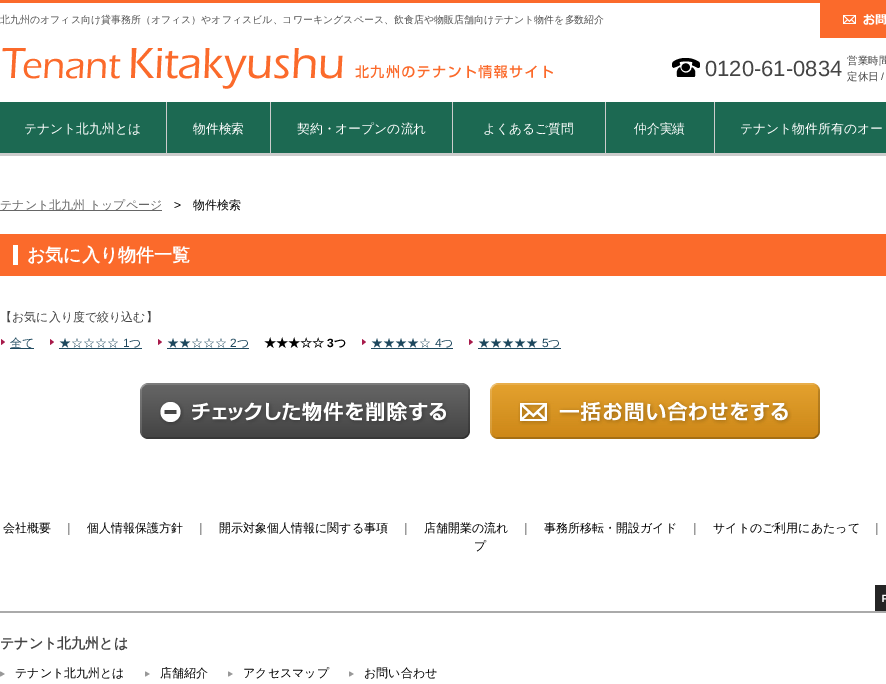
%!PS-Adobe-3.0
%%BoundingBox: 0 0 886 684
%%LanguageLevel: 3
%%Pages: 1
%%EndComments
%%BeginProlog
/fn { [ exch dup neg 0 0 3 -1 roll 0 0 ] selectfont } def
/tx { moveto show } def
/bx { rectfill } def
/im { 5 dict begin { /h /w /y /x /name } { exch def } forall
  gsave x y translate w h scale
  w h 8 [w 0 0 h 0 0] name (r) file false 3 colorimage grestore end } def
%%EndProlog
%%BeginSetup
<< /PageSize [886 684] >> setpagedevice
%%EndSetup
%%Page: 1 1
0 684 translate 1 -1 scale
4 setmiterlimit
1 setgray
0 0 886 684 bx
0.984 0.416 0.169 setrgbcolor
0 0 886 3 bx
0.8 setgray
0 153 886 3 bx
/WenQuanYiZenHei-Medium 9.95 fn
0.329 setgray
(北九州のオフィス向け貸事務所（オフィス）やオフィスビル、コワーキングスペース、飲食店や物販店舗向けテナント物件を多数紹介) 0 23 tx
0.984 0.416 0.169 setrgbcolor
820 3 66 35 bx
(image0.raw) 843 14 43 11 im
(image1.raw) 2 48 551 41 im
(image2.raw) 672 58 28 19 im
/LiberationSans-Regular 22 fn
0.267 setgray
(0120-61-0834) 705 76 tx
/WenQuanYiZenHei-Medium 10.5 fn
(営業時間) 847 64 tx
(定休日) 847 80 tx
/LiberationSans-Regular 10.5 fn
(/) 881 80 tx
0.11 0.412 0.322 setrgbcolor
0 102 166 51 bx
0.8 setgray
166 102 1 51 bx
/WenQuanYiZenHei-Medium 12.8 fn
1 setgray
(テナント北九州とは) 24 133 tx
0.11 0.412 0.322 setrgbcolor
167 102 103 51 bx
0.8 setgray
270 102 1 51 bx
1 setgray
(物件検索) 193 133 tx
0.11 0.412 0.322 setrgbcolor
271 102 181 51 bx
0.8 setgray
452 102 1 51 bx
1 setgray
(契約・オープンの流れ) 297 133 tx
0.11 0.412 0.322 setrgbcolor
453 102 152 51 bx
0.8 setgray
605 102 1 51 bx
1 setgray
(よくあるご質問) 483 133 tx
0.11 0.412 0.322 setrgbcolor
606 102 108 51 bx
0.8 setgray
714 102 1 51 bx
1 setgray
(仲介実績) 634 133 tx
0.11 0.412 0.322 setrgbcolor
715 102 171 51 bx
1 setgray
(テナント物件所有のオー) 740 133 tx
0.4 setgray
0 210 162 1 bx
/WenQuanYiZenHei-Medium 12 fn
(テナント北九州 トップページ) 0 209 tx
/LiberationSans-Regular 12 fn
0 setgray
(>) 174 209 tx
/WenQuanYiZenHei-Medium 12 fn
(物件検索) 193 209 tx
0.984 0.416 0.169 setrgbcolor
0 234 886 42 bx
/WenQuanYiZenHei-Bold 18 fn
1 setgray
(お気に入り物件一覧) 27 261 tx
13 245 5 20 bx
/WenQuanYiZenHei-Medium 12 fn
0.267 setgray
(【お気に入り度で絞り込む】) 0 321 tx
(image3.raw) 1 339 4 6 im
0.118 0.282 0.369 setrgbcolor
10 348 24 1 bx
(全て) 10 347 tx
(image3.raw) 50 339 4 6 im
(★☆☆☆☆) 59 347 tx
/LiberationSans-Regular 12 fn
(1) 123 347 tx
/WenQuanYiZenHei-Medium 12 fn
(つ) 129 347 tx
59 348 83 1 bx
(image3.raw) 158 339 4 6 im
(★★☆☆☆) 167 347 tx
/LiberationSans-Regular 12 fn
(2) 230 347 tx
/WenQuanYiZenHei-Medium 12 fn
(つ) 237 347 tx
167 348 82 1 bx
/WenQuanYiZenHei-Bold 12 fn
0 setgray
(★★★☆☆) 264 347 tx
/LiberationSans-Bold 12 fn
(3) 327 347 tx
/WenQuanYiZenHei-Bold 12 fn
(つ) 334 347 tx
(image3.raw) 362 339 4 6 im
/WenQuanYiZenHei-Medium 12 fn
0.118 0.282 0.369 setrgbcolor
(★★★★☆) 371 347 tx
/LiberationSans-Regular 12 fn
(4) 435 347 tx
/WenQuanYiZenHei-Medium 12 fn
(つ) 441 347 tx
371 348 82 1 bx
(image3.raw) 469 339 4 6 im
(★★★★★) 478 347 tx
/LiberationSans-Regular 12 fn
(5) 542 347 tx
/WenQuanYiZenHei-Medium 12 fn
(つ) 548 347 tx
478 348 83 1 bx
(image4.raw) 140 383 330 56 im
(image5.raw) 490 383 330 56 im
0 setgray
(会社概要) 3 532 tx
0.267 setgray
(｜) 63 532 tx
0 setgray
(個人情報保護方針) 87 532 tx
0.267 setgray
(｜) 195 532 tx
0 setgray
(開示対象個人情報に関する事項) 219 532 tx
0.267 setgray
(｜) 400 532 tx
0 setgray
(店舗開業の流れ) 424 532 tx
0.267 setgray
(｜) 520 532 tx
0 setgray
(事務所移転・開設ガイド) 544 532 tx
0.267 setgray
(｜) 689 532 tx
0 setgray
(サイトのご利用にあたって) 713 532 tx
0.267 setgray
(｜) 871 532 tx
0 setgray
(プ) 474 550 tx
(image6.raw) 875 585 11 26 im
0.667 setgray
0 611 886 2 bx
/WenQuanYiZenHei-Bold 14 fn
0.267 setgray
(テナント北九州とは) 0 648 tx
(image7.raw) 0 671 5 6 im
/WenQuanYiZenHei-Medium 12 fn
0 setgray
(テナント北九州とは) 15 677 tx
(image7.raw) 145 671 5 6 im
(店舗紹介) 160 677 tx
(image7.raw) 228 671 5 6 im
(アクセスマップ) 243 677 tx
(image7.raw) 349 671 5 6 im
(お問い合わせ) 364 677 tx
showpage
%%EOF
